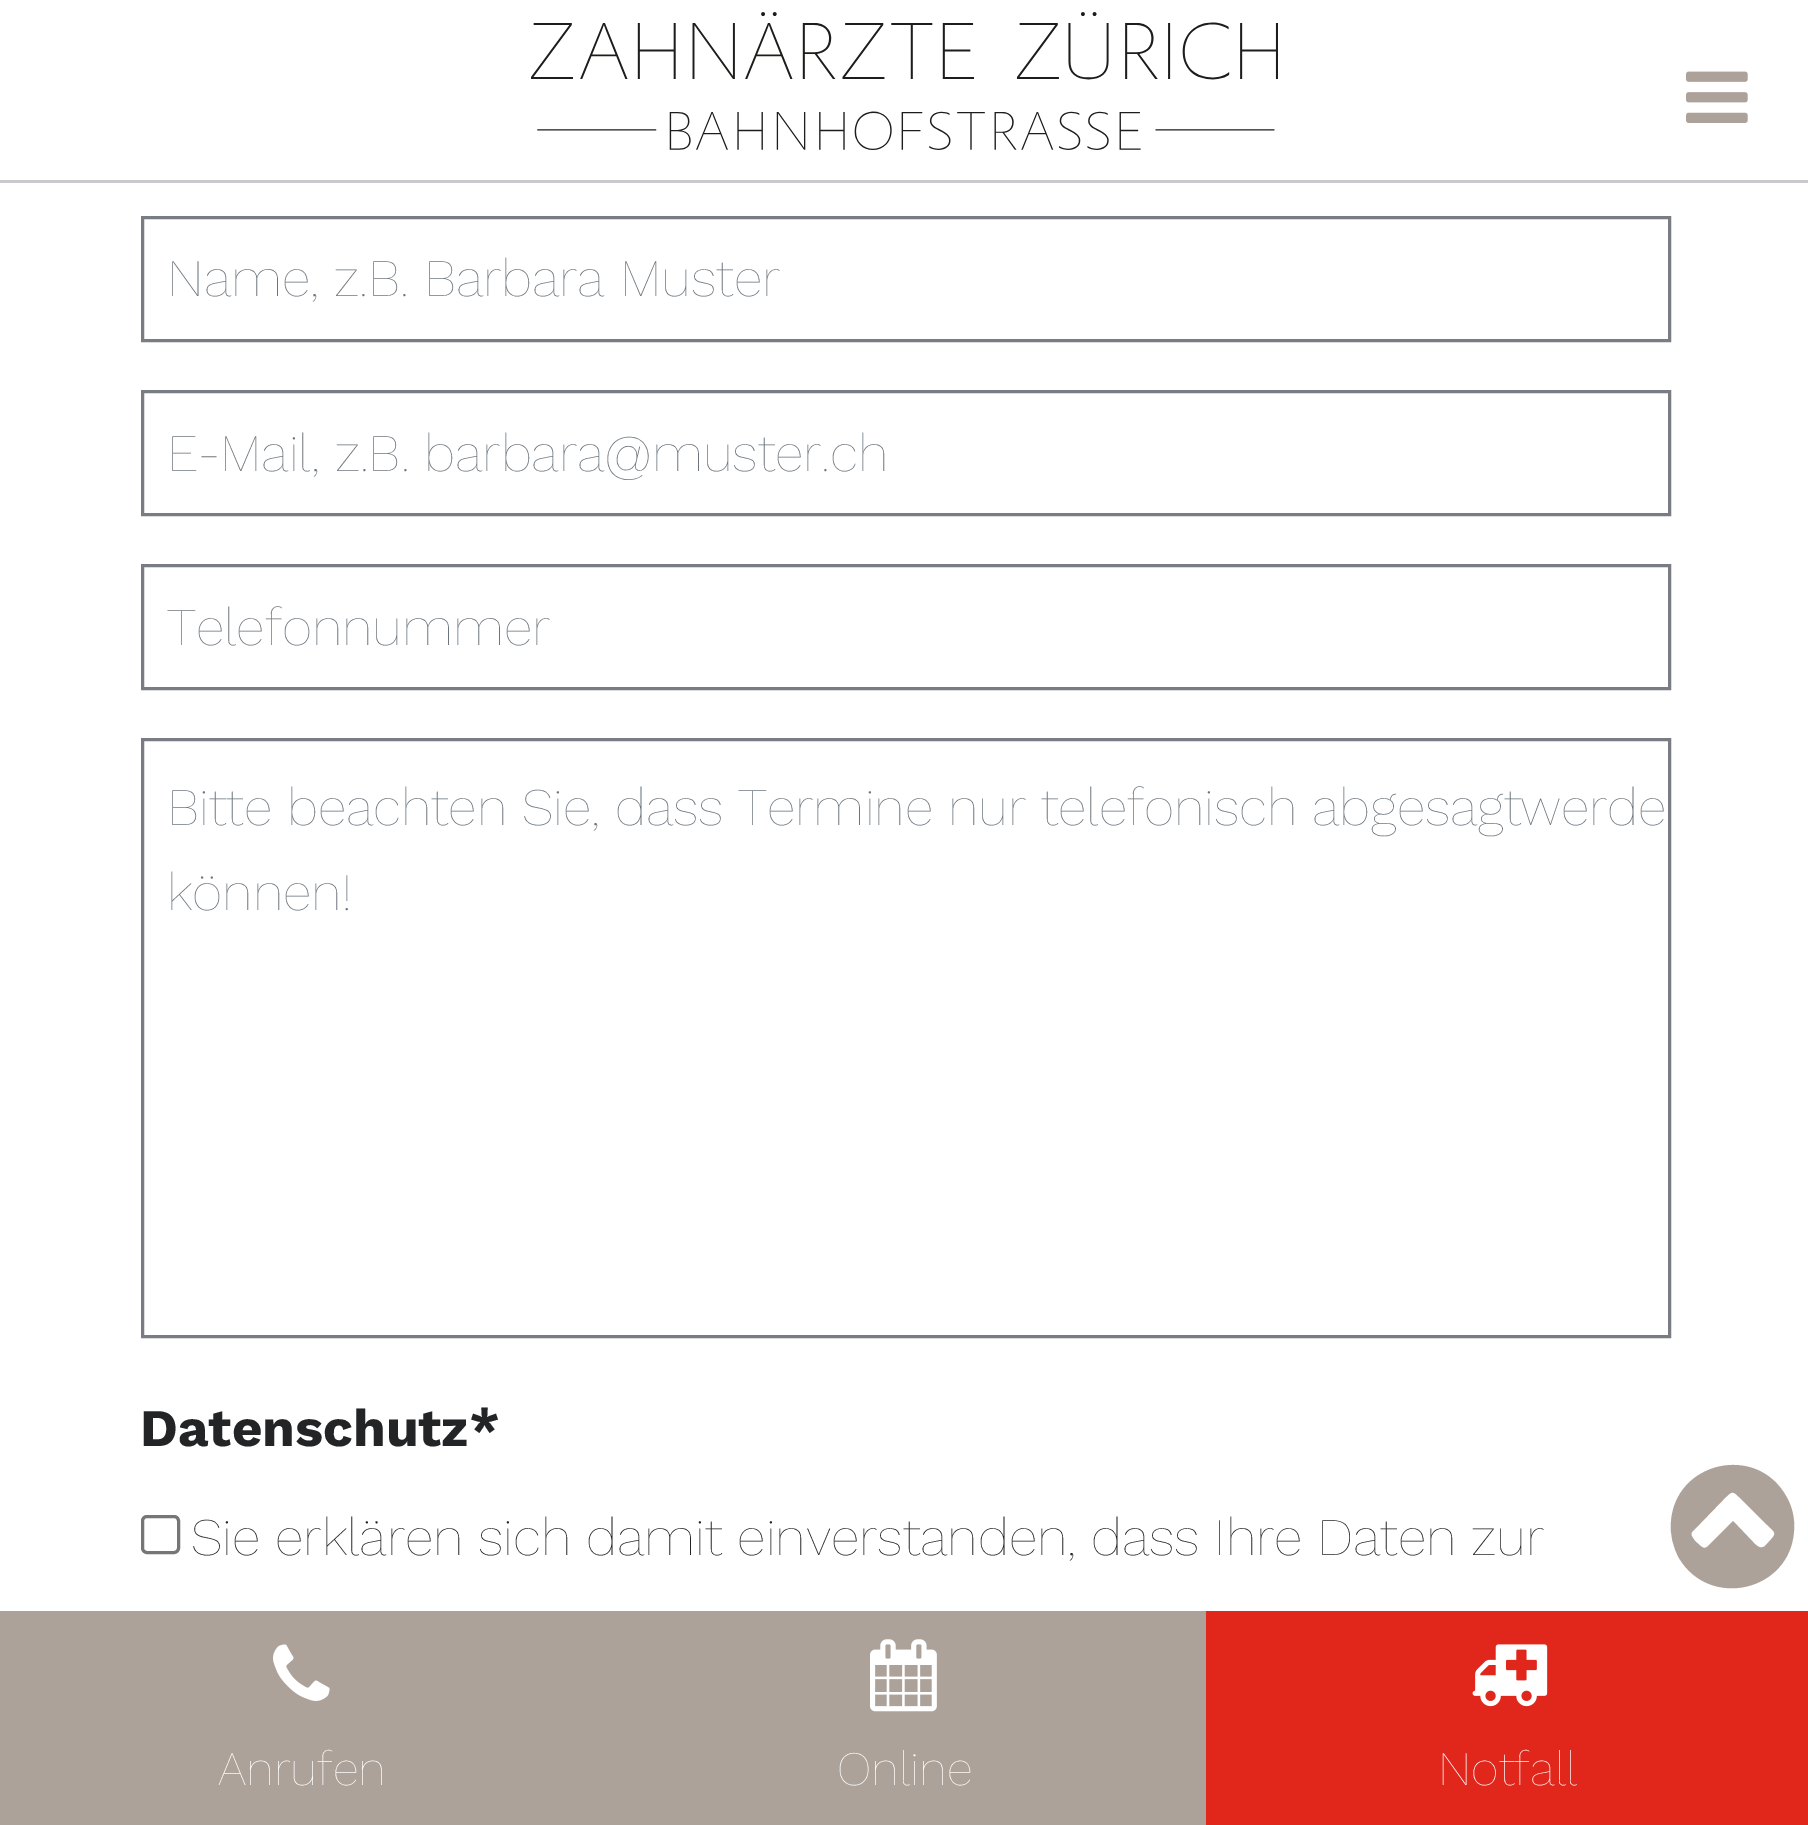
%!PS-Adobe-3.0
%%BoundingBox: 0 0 1808 1825
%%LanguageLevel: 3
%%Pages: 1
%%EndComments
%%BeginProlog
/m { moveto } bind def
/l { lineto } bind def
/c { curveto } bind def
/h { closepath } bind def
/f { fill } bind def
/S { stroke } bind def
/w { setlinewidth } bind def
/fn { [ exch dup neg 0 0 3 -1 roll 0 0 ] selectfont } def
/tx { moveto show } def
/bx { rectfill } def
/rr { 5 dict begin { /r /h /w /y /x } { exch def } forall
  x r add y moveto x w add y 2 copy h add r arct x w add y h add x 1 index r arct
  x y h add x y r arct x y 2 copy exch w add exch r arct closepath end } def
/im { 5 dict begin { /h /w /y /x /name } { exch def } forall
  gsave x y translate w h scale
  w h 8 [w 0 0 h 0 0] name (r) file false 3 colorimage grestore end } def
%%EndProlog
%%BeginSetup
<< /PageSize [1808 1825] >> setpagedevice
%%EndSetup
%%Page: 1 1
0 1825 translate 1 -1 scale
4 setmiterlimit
1 setgray
0 0 1808 1825 bx
0.784 0.788 0.8 setrgbcolor
0 180 1808 3 bx
(image0.raw) 531 12 747 138 im
(image1.raw) 1686 71 62 52 im
0.475 0.486 0.514 setrgbcolor
3 w
142.5 217.5 1527 123 rectstroke
/WorkSans-Thin 52.8 fn
0.424 0.459 0.49 setrgbcolor
(Name, z.B. Barbara Muster) 167 296 tx
0.475 0.486 0.514 setrgbcolor
142.5 391.5 1527 123 rectstroke
0.424 0.459 0.49 setrgbcolor
(E-Mail, z.B. barbara@muster.ch) 167 471 tx
0.475 0.486 0.514 setrgbcolor
142.5 565.5 1527 123 rectstroke
0.424 0.459 0.49 setrgbcolor
(Telefonnummer) 167 645 tx
0.475 0.486 0.514 setrgbcolor
142.5 739.5 1527 597 rectstroke
0.424 0.459 0.49 setrgbcolor
(Bitte beachten Sie, dass Termine nur telefonisch abgesagt) 167 825 tx
(werde) 1520 825 tx
(können!) 167 910 tx
/WorkSans-Bold 52.8 fn
0.137 0.141 0.149 setrgbcolor
(Datenschutz*) 140 1446 tx
0.463 setgray
142.5 1516.5 36 36 4.5 rr S
/WorkSans-Thin 52.8 fn
0.137 0.141 0.149 setrgbcolor
(Sie erklären sich damit einverstanden, dass Ihre Daten zur) 191 1555 tx
0.678 0.635 0.604 setrgbcolor
1765 1546 m 1779 1531 1777 1535 1761 1519 c 1742 1500 l 1732 1490 1733 1490 1723 1500 c 1693 1531 l 1689 1534 1693 1538 1695 1541 c 1704 1549 1704 1551 1712 1542 c 1733 1521 l 1753 1542 l 1756 1545 1760 1550 1765 1546 c h 1786 1496 m 1792 1506 1795 1518 1794 1531 c 1790 1591 1710 1610 1679 1558 c 1673 1547 1670 1535 1671 1522 c 1675 1462 1756 1443 1786 1496 c h f
0 1611 1206 214 bx
(image2.raw) 273 1644 57 57 im
/WorkSans-Thin 48 fn
1 setgray
(Anrufen) 218 1785 tx
(image3.raw) 870 1639 67 73 im
(Online) 837 1785 tx
0.882 0.149 0.11 setrgbcolor
1206 1611 602 214 bx
(image4.raw) 1472 1644 76 63 im
1 setgray
(Notfall) 1438 1785 tx
showpage
%%EOF
